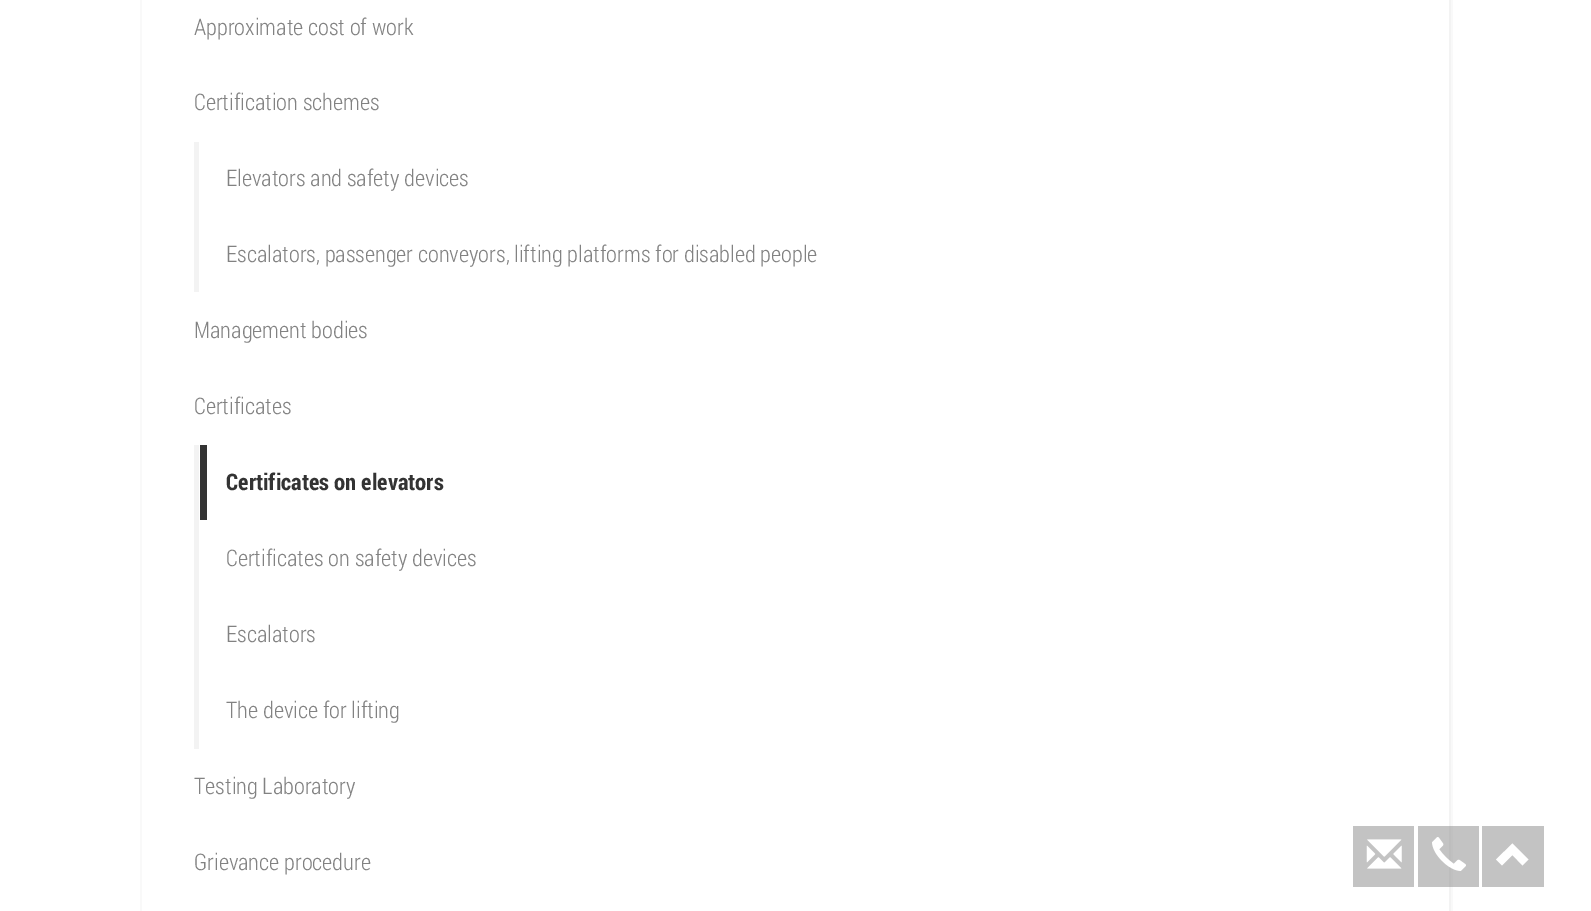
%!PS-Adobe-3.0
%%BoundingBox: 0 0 1591 911
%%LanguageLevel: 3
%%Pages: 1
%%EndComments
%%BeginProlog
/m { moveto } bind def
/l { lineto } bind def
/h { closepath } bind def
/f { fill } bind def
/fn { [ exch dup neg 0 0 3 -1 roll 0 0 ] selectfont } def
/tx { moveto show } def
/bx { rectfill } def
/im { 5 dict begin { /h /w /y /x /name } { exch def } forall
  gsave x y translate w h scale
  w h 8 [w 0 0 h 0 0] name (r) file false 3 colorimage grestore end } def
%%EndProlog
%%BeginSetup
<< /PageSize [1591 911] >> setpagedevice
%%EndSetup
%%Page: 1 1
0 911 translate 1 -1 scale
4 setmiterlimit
1 setgray
0 0 1591 911 bx
0.765 setgray
1418 826 61 61 bx
0.976 setgray
1451 0 2 911 bx
0.753 setgray
1451 826 2 61 bx
0.976 setgray
140 0 2 911 bx
0.953 setgray
1449 0 2 911 bx
0.741 setgray
1449 826 2 61 bx
/RobotoCondensed-Light 22.75 fn
0.51 setgray
(Approximate cost of work) 194 35 tx
(Сertification schemes) 194 110 tx
0.953 setgray
194 142 5 150 bx
0.51 setgray
(Elevators and safety devices) 226 186 tx
(Escalators, passenger conveyors, lifting platforms for disabled people) 226 262 tx
(Management bodies) 194 338 tx
(Certificates) 194 414 tx
0.953 setgray
194 445 5 304 bx
0.2 setgray
200 445 7 75 bx
/RobotoCondensed-Bold 22.75 fn
(Certificates on elevators) 226 490 tx
/RobotoCondensed-Light 22.75 fn
0.51 setgray
(Certificates on safety devices) 226 566 tx
(Escalators) 226 642 tx
(The device for lifting) 226 718 tx
(Testing Laboratory) 194 794 tx
(Grievance procedure) 194 870 tx
0.765 setgray
1353 826 61 61 bx
(image0.raw) 1366 839 36 30 im
(image1.raw) 1432 837 34 34 im
1482 826 62 61 bx
1 setgray
1528.5 859.5 m 1522.5 865.5 l 1512.5 855 l 1502 865.5 l 1496 859.5 l 1512.5 843.5 l h f
showpage
%%EOF
